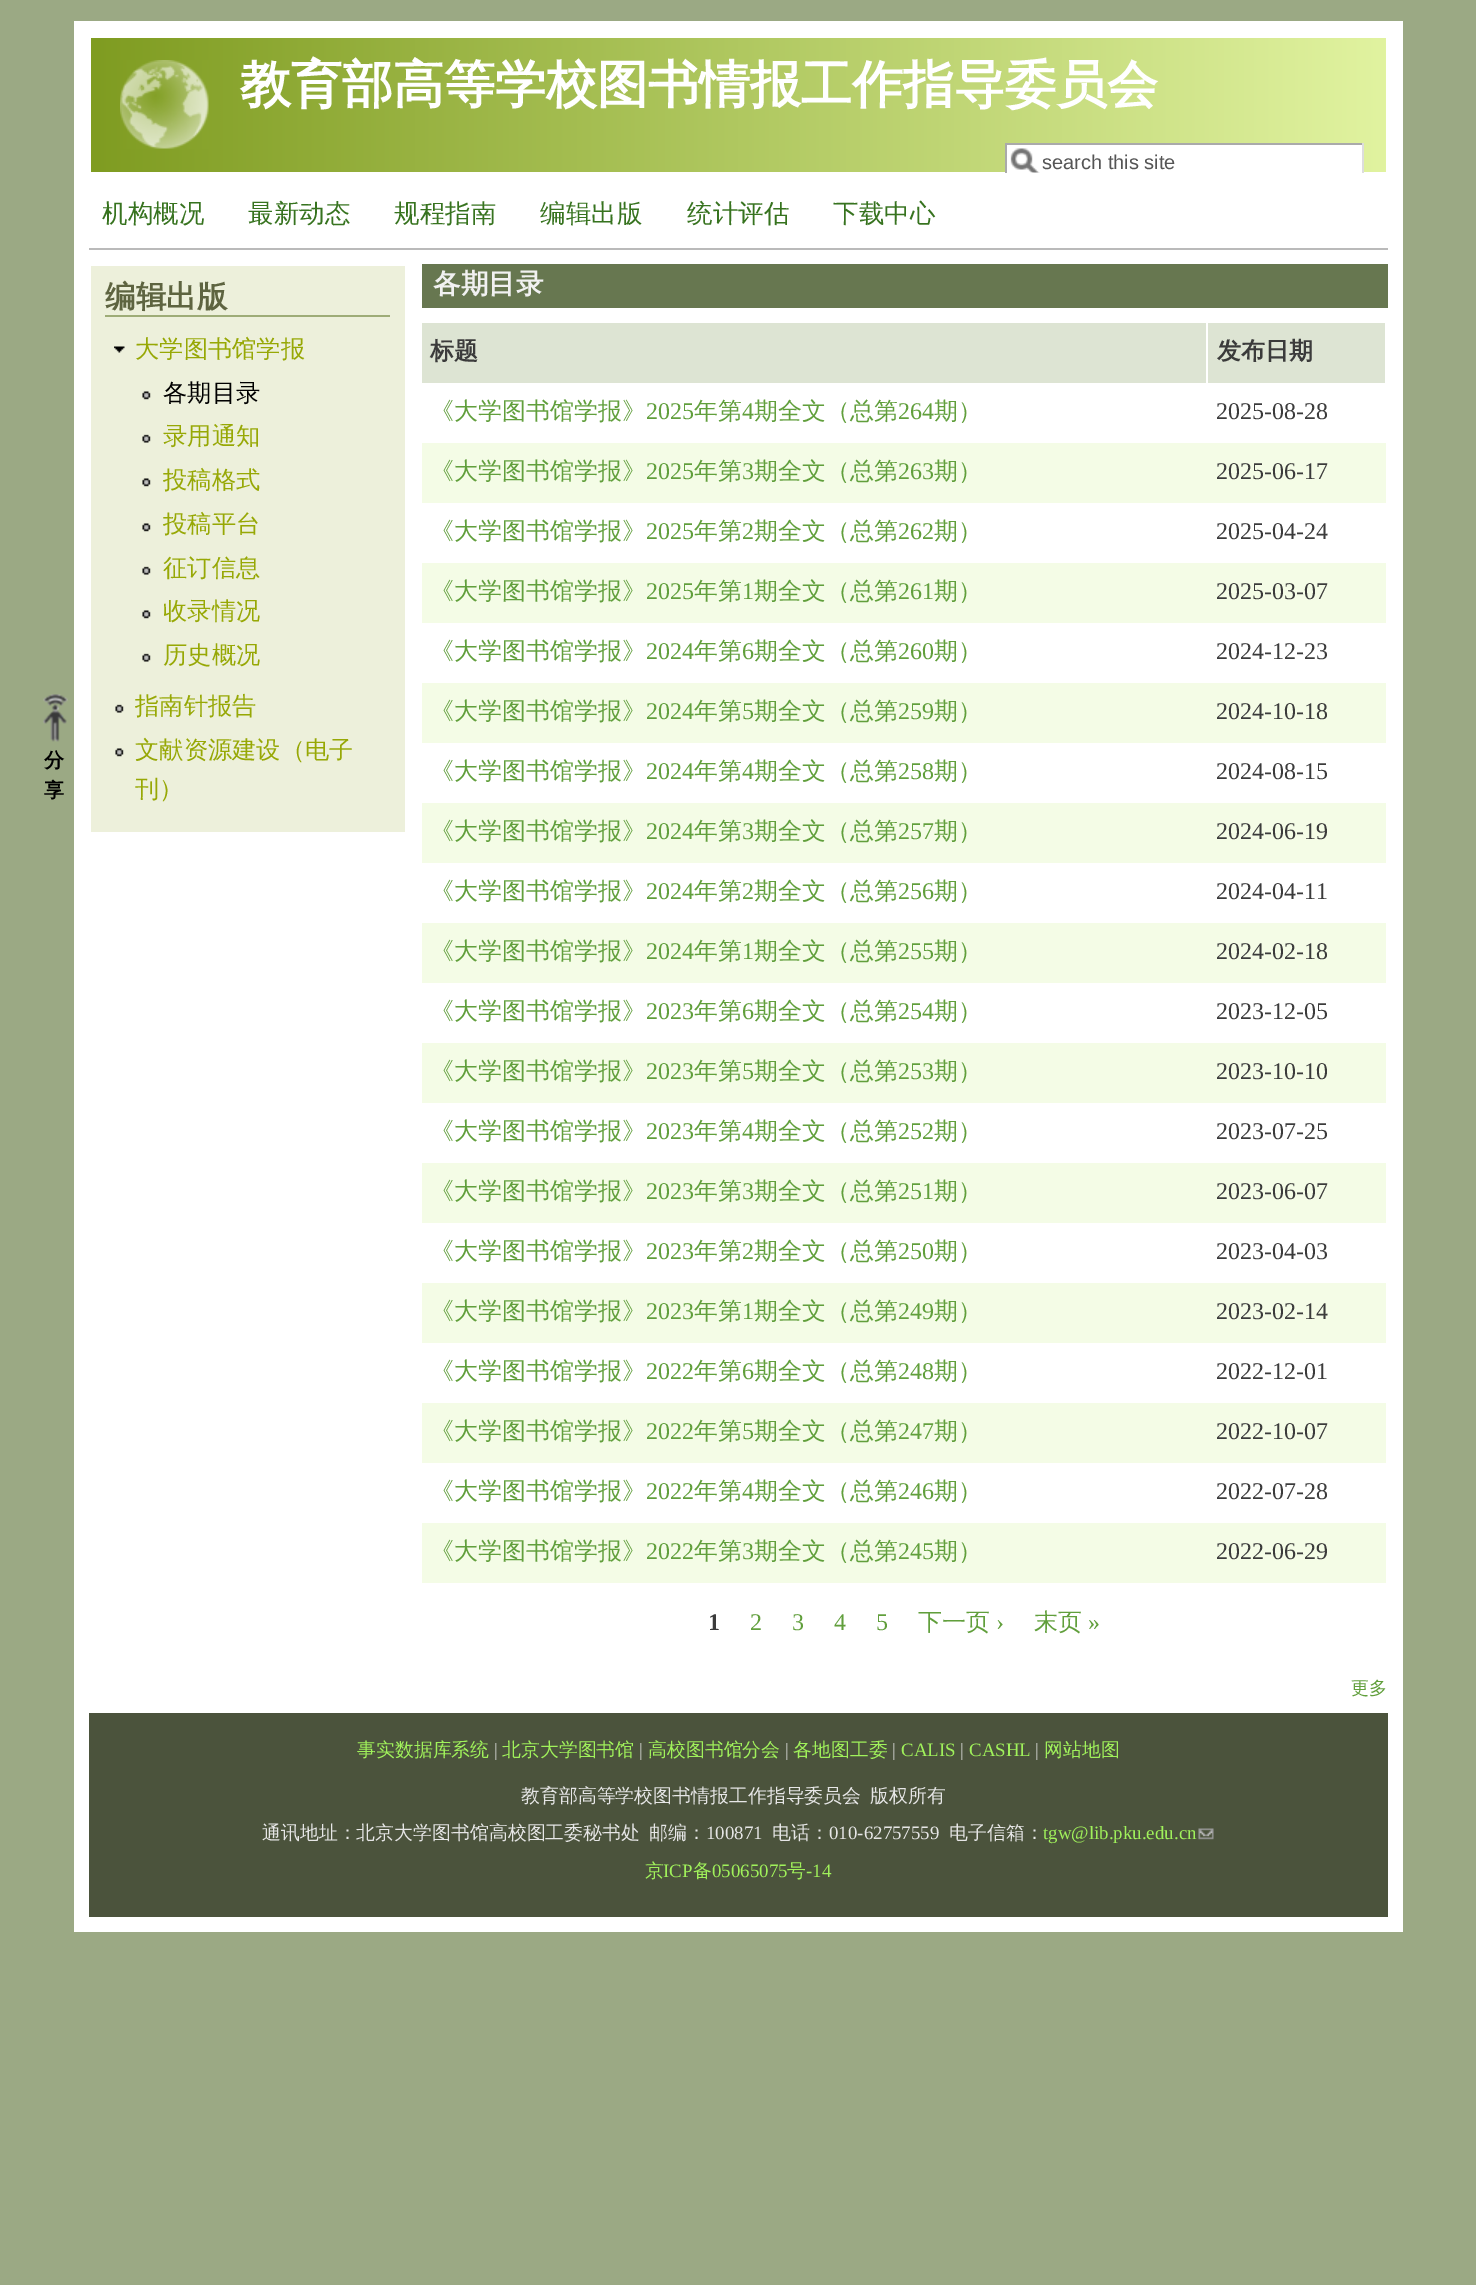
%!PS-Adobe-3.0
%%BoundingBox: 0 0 1476 2285
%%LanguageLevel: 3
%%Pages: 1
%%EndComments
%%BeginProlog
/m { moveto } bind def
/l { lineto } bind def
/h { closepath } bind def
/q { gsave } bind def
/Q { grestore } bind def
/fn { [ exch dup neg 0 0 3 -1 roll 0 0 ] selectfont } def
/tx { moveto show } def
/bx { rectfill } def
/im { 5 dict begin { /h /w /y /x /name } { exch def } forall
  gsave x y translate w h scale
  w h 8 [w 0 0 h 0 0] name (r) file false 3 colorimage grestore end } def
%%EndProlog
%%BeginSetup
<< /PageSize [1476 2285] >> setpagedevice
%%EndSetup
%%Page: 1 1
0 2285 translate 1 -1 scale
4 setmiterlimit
0.608 0.663 0.518 setrgbcolor
0 0 1476 2285 bx
1 setgray
74 21 1329 1911 bx
q 91 38 m 1386 38 l 1386 172 l 91 172 l h clip newpath
<< /ShadingType 2 /ColorSpace /DeviceRGB /Coords [90 38 1386 38] /Extend [true true] /Function << /FunctionType 2 /Domain [0 1] /C0 [0.498 0.612 0.129] /C1 [0.882 0.953 0.627] /N 1 >> >> shfill Q
(image0.raw) 120 60 89 89 im
/WenQuanYiZenHei-Bold 51 fn
(教育部高等学校图书情报工作指导委员会) 240 102 tx
1007 145 355 27 bx
(image1.raw) 1010 148 30 25 im
0.667 setgray
1005 143 359 2 bx
0.867 setgray
1362 143 2 30 bx
0.667 setgray
1005 143 2 30 bx
/LiberationSans-Regular 20 fn
0.333 setgray
(search this site) 1042 169 tx
0.729 setgray
89 248 1299 2 bx
/WenQuanYiZenHei-Medium 25.5 fn
0.216 0.451 0.122 setrgbcolor
(机构概况) 102 222 tx
(最新动态) 248 222 tx
(规程指南) 394 222 tx
(编辑出版) 540 222 tx
(统计评估) 687 222 tx
(下载中心) 833 222 tx
(image2.raw) 43 694 25 48 im
/WenQuanYiZenHei-Bold 20 fn
0 setgray
(分) 44 767 tx
(享) 44 797 tx
0.929 0.941 0.859 setrgbcolor
91 266 314 566 bx
0.62 0.675 0.467 setrgbcolor
105 315 285 2 bx
/WenQuanYiZenHei-Bold 30.5 fn
0.369 0.392 0.251 setrgbcolor
(编辑出版) 105 307 tx
(image3.raw) 114 346 11 7 im
/WenQuanYiZenHei-Medium 24.25 fn
0.592 0.659 0.02 setrgbcolor
(大学图书馆学报) 135 357 tx
(image4.raw) 142 391 9 9 im
0 setgray
(各期目录) 163 401 tx
(image5.raw) 142 434 9 9 im
0.592 0.659 0.02 setrgbcolor
(录用通知) 163 444 tx
(image4.raw) 142 478 9 9 im
(投稿格式) 163 488 tx
(image4.raw) 142 523 9 9 im
(投稿平台) 163 532 tx
(image5.raw) 142 566 9 9 im
(征订信息) 163 576 tx
(image4.raw) 142 610 9 9 im
(收录情况) 163 619 tx
(image5.raw) 142 653 9 9 im
(历史概况) 163 663 tx
(image5.raw) 115 704 9 9 im
(指南针报告) 135 714 tx
(image4.raw) 115 748 9 9 im
(文献资源建设（电子) 135 758 tx
(刊）) 135 797 tx
0.404 0.467 0.314 setrgbcolor
422 264 966 44 bx
/WenQuanYiZenHei-Bold 27.5 fn
0.945 setgray
(各期目录) 433 293 tx
0.867 0.894 0.827 setrgbcolor
422 323 784 60 bx
/WenQuanYiZenHei-Bold 24 fn
0.231 setgray
(标题) 430 359 tx
0.867 0.894 0.827 setrgbcolor
1208 323 177 60 bx
0.231 setgray
(发布日期) 1217 359 tx
/WenQuanYiZenHei-Medium 24 fn
0.38 0.624 0.235 setrgbcolor
(《大学图书馆学报》) 430 419 tx
/LiberationSerif-Regular 24 fn
(2025) 646 419 tx
/WenQuanYiZenHei-Medium 24 fn
(年第) 694 419 tx
/LiberationSerif-Regular 24 fn
(4) 742 419 tx
/WenQuanYiZenHei-Medium 24 fn
(期全文（总第) 754 419 tx
/LiberationSerif-Regular 24 fn
(264) 898 419 tx
/WenQuanYiZenHei-Medium 24 fn
(期）) 934 419 tx
/LiberationSerif-Regular 24 fn
0.231 setgray
(2025-08-28) 1216 419 tx
0.957 0.988 0.902 setrgbcolor
422 443 964 60 bx
/WenQuanYiZenHei-Medium 24 fn
0.38 0.624 0.235 setrgbcolor
(《大学图书馆学报》) 430 479 tx
/LiberationSerif-Regular 24 fn
(2025) 646 479 tx
/WenQuanYiZenHei-Medium 24 fn
(年第) 694 479 tx
/LiberationSerif-Regular 24 fn
(3) 742 479 tx
/WenQuanYiZenHei-Medium 24 fn
(期全文（总第) 754 479 tx
/LiberationSerif-Regular 24 fn
(263) 898 479 tx
/WenQuanYiZenHei-Medium 24 fn
(期）) 934 479 tx
/LiberationSerif-Regular 24 fn
0.231 setgray
(2025-06-17) 1216 479 tx
/WenQuanYiZenHei-Medium 24 fn
0.38 0.624 0.235 setrgbcolor
(《大学图书馆学报》) 430 539 tx
/LiberationSerif-Regular 24 fn
(2025) 646 539 tx
/WenQuanYiZenHei-Medium 24 fn
(年第) 694 539 tx
/LiberationSerif-Regular 24 fn
(2) 742 539 tx
/WenQuanYiZenHei-Medium 24 fn
(期全文（总第) 754 539 tx
/LiberationSerif-Regular 24 fn
(262) 898 539 tx
/WenQuanYiZenHei-Medium 24 fn
(期）) 934 539 tx
/LiberationSerif-Regular 24 fn
0.231 setgray
(2025-04-24) 1216 539 tx
0.957 0.988 0.902 setrgbcolor
422 563 964 60 bx
/WenQuanYiZenHei-Medium 24 fn
0.38 0.624 0.235 setrgbcolor
(《大学图书馆学报》) 430 599 tx
/LiberationSerif-Regular 24 fn
(2025) 646 599 tx
/WenQuanYiZenHei-Medium 24 fn
(年第) 694 599 tx
/LiberationSerif-Regular 24 fn
(1) 742 599 tx
/WenQuanYiZenHei-Medium 24 fn
(期全文（总第) 754 599 tx
/LiberationSerif-Regular 24 fn
(261) 898 599 tx
/WenQuanYiZenHei-Medium 24 fn
(期）) 934 599 tx
/LiberationSerif-Regular 24 fn
0.231 setgray
(2025-03-07) 1216 599 tx
/WenQuanYiZenHei-Medium 24 fn
0.38 0.624 0.235 setrgbcolor
(《大学图书馆学报》) 430 659 tx
/LiberationSerif-Regular 24 fn
(2024) 646 659 tx
/WenQuanYiZenHei-Medium 24 fn
(年第) 694 659 tx
/LiberationSerif-Regular 24 fn
(6) 742 659 tx
/WenQuanYiZenHei-Medium 24 fn
(期全文（总第) 754 659 tx
/LiberationSerif-Regular 24 fn
(260) 898 659 tx
/WenQuanYiZenHei-Medium 24 fn
(期）) 934 659 tx
/LiberationSerif-Regular 24 fn
0.231 setgray
(2024-12-23) 1216 659 tx
0.957 0.988 0.902 setrgbcolor
422 683 964 60 bx
/WenQuanYiZenHei-Medium 24 fn
0.38 0.624 0.235 setrgbcolor
(《大学图书馆学报》) 430 719 tx
/LiberationSerif-Regular 24 fn
(2024) 646 719 tx
/WenQuanYiZenHei-Medium 24 fn
(年第) 694 719 tx
/LiberationSerif-Regular 24 fn
(5) 742 719 tx
/WenQuanYiZenHei-Medium 24 fn
(期全文（总第) 754 719 tx
/LiberationSerif-Regular 24 fn
(259) 898 719 tx
/WenQuanYiZenHei-Medium 24 fn
(期）) 934 719 tx
/LiberationSerif-Regular 24 fn
0.231 setgray
(2024-10-18) 1216 719 tx
/WenQuanYiZenHei-Medium 24 fn
0.38 0.624 0.235 setrgbcolor
(《大学图书馆学报》) 430 779 tx
/LiberationSerif-Regular 24 fn
(2024) 646 779 tx
/WenQuanYiZenHei-Medium 24 fn
(年第) 694 779 tx
/LiberationSerif-Regular 24 fn
(4) 742 779 tx
/WenQuanYiZenHei-Medium 24 fn
(期全文（总第) 754 779 tx
/LiberationSerif-Regular 24 fn
(258) 898 779 tx
/WenQuanYiZenHei-Medium 24 fn
(期）) 934 779 tx
/LiberationSerif-Regular 24 fn
0.231 setgray
(2024-08-15) 1216 779 tx
0.957 0.988 0.902 setrgbcolor
422 803 964 60 bx
/WenQuanYiZenHei-Medium 24 fn
0.38 0.624 0.235 setrgbcolor
(《大学图书馆学报》) 430 839 tx
/LiberationSerif-Regular 24 fn
(2024) 646 839 tx
/WenQuanYiZenHei-Medium 24 fn
(年第) 694 839 tx
/LiberationSerif-Regular 24 fn
(3) 742 839 tx
/WenQuanYiZenHei-Medium 24 fn
(期全文（总第) 754 839 tx
/LiberationSerif-Regular 24 fn
(257) 898 839 tx
/WenQuanYiZenHei-Medium 24 fn
(期）) 934 839 tx
/LiberationSerif-Regular 24 fn
0.231 setgray
(2024-06-19) 1216 839 tx
/WenQuanYiZenHei-Medium 24 fn
0.38 0.624 0.235 setrgbcolor
(《大学图书馆学报》) 430 899 tx
/LiberationSerif-Regular 24 fn
(2024) 646 899 tx
/WenQuanYiZenHei-Medium 24 fn
(年第) 694 899 tx
/LiberationSerif-Regular 24 fn
(2) 742 899 tx
/WenQuanYiZenHei-Medium 24 fn
(期全文（总第) 754 899 tx
/LiberationSerif-Regular 24 fn
(256) 898 899 tx
/WenQuanYiZenHei-Medium 24 fn
(期）) 934 899 tx
/LiberationSerif-Regular 24 fn
0.231 setgray
(2024-04-11) 1216 899 tx
0.957 0.988 0.902 setrgbcolor
422 923 964 60 bx
/WenQuanYiZenHei-Medium 24 fn
0.38 0.624 0.235 setrgbcolor
(《大学图书馆学报》) 430 959 tx
/LiberationSerif-Regular 24 fn
(2024) 646 959 tx
/WenQuanYiZenHei-Medium 24 fn
(年第) 694 959 tx
/LiberationSerif-Regular 24 fn
(1) 742 959 tx
/WenQuanYiZenHei-Medium 24 fn
(期全文（总第) 754 959 tx
/LiberationSerif-Regular 24 fn
(255) 898 959 tx
/WenQuanYiZenHei-Medium 24 fn
(期）) 934 959 tx
/LiberationSerif-Regular 24 fn
0.231 setgray
(2024-02-18) 1216 959 tx
/WenQuanYiZenHei-Medium 24 fn
0.38 0.624 0.235 setrgbcolor
(《大学图书馆学报》) 430 1019 tx
/LiberationSerif-Regular 24 fn
(2023) 646 1019 tx
/WenQuanYiZenHei-Medium 24 fn
(年第) 694 1019 tx
/LiberationSerif-Regular 24 fn
(6) 742 1019 tx
/WenQuanYiZenHei-Medium 24 fn
(期全文（总第) 754 1019 tx
/LiberationSerif-Regular 24 fn
(254) 898 1019 tx
/WenQuanYiZenHei-Medium 24 fn
(期）) 934 1019 tx
/LiberationSerif-Regular 24 fn
0.231 setgray
(2023-12-05) 1216 1019 tx
0.957 0.988 0.902 setrgbcolor
422 1043 964 60 bx
/WenQuanYiZenHei-Medium 24 fn
0.38 0.624 0.235 setrgbcolor
(《大学图书馆学报》) 430 1079 tx
/LiberationSerif-Regular 24 fn
(2023) 646 1079 tx
/WenQuanYiZenHei-Medium 24 fn
(年第) 694 1079 tx
/LiberationSerif-Regular 24 fn
(5) 742 1079 tx
/WenQuanYiZenHei-Medium 24 fn
(期全文（总第) 754 1079 tx
/LiberationSerif-Regular 24 fn
(253) 898 1079 tx
/WenQuanYiZenHei-Medium 24 fn
(期）) 934 1079 tx
/LiberationSerif-Regular 24 fn
0.231 setgray
(2023-10-10) 1216 1079 tx
/WenQuanYiZenHei-Medium 24 fn
0.38 0.624 0.235 setrgbcolor
(《大学图书馆学报》) 430 1139 tx
/LiberationSerif-Regular 24 fn
(2023) 646 1139 tx
/WenQuanYiZenHei-Medium 24 fn
(年第) 694 1139 tx
/LiberationSerif-Regular 24 fn
(4) 742 1139 tx
/WenQuanYiZenHei-Medium 24 fn
(期全文（总第) 754 1139 tx
/LiberationSerif-Regular 24 fn
(252) 898 1139 tx
/WenQuanYiZenHei-Medium 24 fn
(期）) 934 1139 tx
/LiberationSerif-Regular 24 fn
0.231 setgray
(2023-07-25) 1216 1139 tx
0.957 0.988 0.902 setrgbcolor
422 1163 964 60 bx
/WenQuanYiZenHei-Medium 24 fn
0.38 0.624 0.235 setrgbcolor
(《大学图书馆学报》) 430 1199 tx
/LiberationSerif-Regular 24 fn
(2023) 646 1199 tx
/WenQuanYiZenHei-Medium 24 fn
(年第) 694 1199 tx
/LiberationSerif-Regular 24 fn
(3) 742 1199 tx
/WenQuanYiZenHei-Medium 24 fn
(期全文（总第) 754 1199 tx
/LiberationSerif-Regular 24 fn
(251) 898 1199 tx
/WenQuanYiZenHei-Medium 24 fn
(期）) 934 1199 tx
/LiberationSerif-Regular 24 fn
0.231 setgray
(2023-06-07) 1216 1199 tx
/WenQuanYiZenHei-Medium 24 fn
0.38 0.624 0.235 setrgbcolor
(《大学图书馆学报》) 430 1259 tx
/LiberationSerif-Regular 24 fn
(2023) 646 1259 tx
/WenQuanYiZenHei-Medium 24 fn
(年第) 694 1259 tx
/LiberationSerif-Regular 24 fn
(2) 742 1259 tx
/WenQuanYiZenHei-Medium 24 fn
(期全文（总第) 754 1259 tx
/LiberationSerif-Regular 24 fn
(250) 898 1259 tx
/WenQuanYiZenHei-Medium 24 fn
(期）) 934 1259 tx
/LiberationSerif-Regular 24 fn
0.231 setgray
(2023-04-03) 1216 1259 tx
0.957 0.988 0.902 setrgbcolor
422 1283 964 60 bx
/WenQuanYiZenHei-Medium 24 fn
0.38 0.624 0.235 setrgbcolor
(《大学图书馆学报》) 430 1319 tx
/LiberationSerif-Regular 24 fn
(2023) 646 1319 tx
/WenQuanYiZenHei-Medium 24 fn
(年第) 694 1319 tx
/LiberationSerif-Regular 24 fn
(1) 742 1319 tx
/WenQuanYiZenHei-Medium 24 fn
(期全文（总第) 754 1319 tx
/LiberationSerif-Regular 24 fn
(249) 898 1319 tx
/WenQuanYiZenHei-Medium 24 fn
(期）) 934 1319 tx
/LiberationSerif-Regular 24 fn
0.231 setgray
(2023-02-14) 1216 1319 tx
/WenQuanYiZenHei-Medium 24 fn
0.38 0.624 0.235 setrgbcolor
(《大学图书馆学报》) 430 1379 tx
/LiberationSerif-Regular 24 fn
(2022) 646 1379 tx
/WenQuanYiZenHei-Medium 24 fn
(年第) 694 1379 tx
/LiberationSerif-Regular 24 fn
(6) 742 1379 tx
/WenQuanYiZenHei-Medium 24 fn
(期全文（总第) 754 1379 tx
/LiberationSerif-Regular 24 fn
(248) 898 1379 tx
/WenQuanYiZenHei-Medium 24 fn
(期）) 934 1379 tx
/LiberationSerif-Regular 24 fn
0.231 setgray
(2022-12-01) 1216 1379 tx
0.957 0.988 0.902 setrgbcolor
422 1403 964 60 bx
/WenQuanYiZenHei-Medium 24 fn
0.38 0.624 0.235 setrgbcolor
(《大学图书馆学报》) 430 1439 tx
/LiberationSerif-Regular 24 fn
(2022) 646 1439 tx
/WenQuanYiZenHei-Medium 24 fn
(年第) 694 1439 tx
/LiberationSerif-Regular 24 fn
(5) 742 1439 tx
/WenQuanYiZenHei-Medium 24 fn
(期全文（总第) 754 1439 tx
/LiberationSerif-Regular 24 fn
(247) 898 1439 tx
/WenQuanYiZenHei-Medium 24 fn
(期）) 934 1439 tx
/LiberationSerif-Regular 24 fn
0.231 setgray
(2022-10-07) 1216 1439 tx
/WenQuanYiZenHei-Medium 24 fn
0.38 0.624 0.235 setrgbcolor
(《大学图书馆学报》) 430 1499 tx
/LiberationSerif-Regular 24 fn
(2022) 646 1499 tx
/WenQuanYiZenHei-Medium 24 fn
(年第) 694 1499 tx
/LiberationSerif-Regular 24 fn
(4) 742 1499 tx
/WenQuanYiZenHei-Medium 24 fn
(期全文（总第) 754 1499 tx
/LiberationSerif-Regular 24 fn
(246) 898 1499 tx
/WenQuanYiZenHei-Medium 24 fn
(期）) 934 1499 tx
/LiberationSerif-Regular 24 fn
0.231 setgray
(2022-07-28) 1216 1499 tx
0.957 0.988 0.902 setrgbcolor
422 1523 964 60 bx
/WenQuanYiZenHei-Medium 24 fn
0.38 0.624 0.235 setrgbcolor
(《大学图书馆学报》) 430 1559 tx
/LiberationSerif-Regular 24 fn
(2022) 646 1559 tx
/WenQuanYiZenHei-Medium 24 fn
(年第) 694 1559 tx
/LiberationSerif-Regular 24 fn
(3) 742 1559 tx
/WenQuanYiZenHei-Medium 24 fn
(期全文（总第) 754 1559 tx
/LiberationSerif-Regular 24 fn
(245) 898 1559 tx
/WenQuanYiZenHei-Medium 24 fn
(期）) 934 1559 tx
/LiberationSerif-Regular 24 fn
0.231 setgray
(2022-06-29) 1216 1559 tx
/LiberationSerif-Bold 24 fn
(1) 708 1630 tx
/LiberationSerif-Regular 24 fn
0.38 0.624 0.235 setrgbcolor
(2) 750 1630 tx
(3) 792 1630 tx
(4) 834 1630 tx
(5) 876 1630 tx
/WenQuanYiZenHei-Medium 24 fn
(下一页) 918 1630 tx
/LiberationSerif-Regular 24 fn
(›) 996 1630 tx
/WenQuanYiZenHei-Medium 24 fn
(末页) 1034 1630 tx
/LiberationSerif-Regular 24 fn
(») 1088 1630 tx
/WenQuanYiZenHei-Medium 18 fn
(更多) 1351 1694 tx
0.294 0.325 0.235 setrgbcolor
89 1713 1299 204 bx
/WenQuanYiZenHei-Medium 18.9 fn
0.627 0.945 0.357 setrgbcolor
(事实数据库系统) 357 1756 tx
/LiberationSerif-Regular 18.9 fn
0.902 setgray
(|) 494 1756 tx
/WenQuanYiZenHei-Medium 18.9 fn
0.627 0.945 0.357 setrgbcolor
(北京大学图书馆) 502 1756 tx
/LiberationSerif-Regular 18.9 fn
0.902 setgray
(|) 639 1756 tx
/WenQuanYiZenHei-Medium 18.9 fn
0.627 0.945 0.357 setrgbcolor
(高校图书馆分会) 648 1756 tx
/LiberationSerif-Regular 18.9 fn
0.902 setgray
(|) 785 1756 tx
/WenQuanYiZenHei-Medium 18.9 fn
0.627 0.945 0.357 setrgbcolor
(各地图工委) 793 1756 tx
/LiberationSerif-Regular 18.9 fn
0.902 setgray
(|) 892 1756 tx
0.627 0.945 0.357 setrgbcolor
(CALIS) 901 1756 tx
0.902 setgray
(|) 960 1756 tx
0.627 0.945 0.357 setrgbcolor
(CASHL) 969 1756 tx
0.902 setgray
(|) 1035 1756 tx
/WenQuanYiZenHei-Medium 18.9 fn
0.627 0.945 0.357 setrgbcolor
(网站地图) 1044 1756 tx
0.902 setgray
(教育部高等学校图书情报工作指导委员会) 521 1802 tx
(版权所有) 870 1802 tx
(通讯地址：北京大学图书馆高校图工委秘书处) 262 1839 tx
(邮编：) 649 1839 tx
/LiberationSerif-Regular 18.9 fn
(100871) 706 1839 tx
/WenQuanYiZenHei-Medium 18.9 fn
(电话：) 772 1839 tx
/LiberationSerif-Regular 18.9 fn
(010-62757559) 829 1839 tx
/WenQuanYiZenHei-Medium 18.9 fn
(电子信箱：) 949 1839 tx
/LiberationSerif-Regular 18.9 fn
0.627 0.945 0.357 setrgbcolor
(tgw@lib.pku.edu.cn) 1043 1839 tx
(image6.raw) 1198 1828 16 12 im
/WenQuanYiZenHei-Medium 18.9 fn
(京) 645 1877 tx
/LiberationSerif-Regular 18.9 fn
(ICP) 663 1877 tx
/WenQuanYiZenHei-Medium 18.9 fn
(备) 693 1877 tx
/LiberationSerif-Regular 18.9 fn
(05065075) 712 1877 tx
/WenQuanYiZenHei-Medium 18.9 fn
(号) 787 1877 tx
/LiberationSerif-Regular 18.9 fn
(-14) 806 1877 tx
showpage
%%EOF
